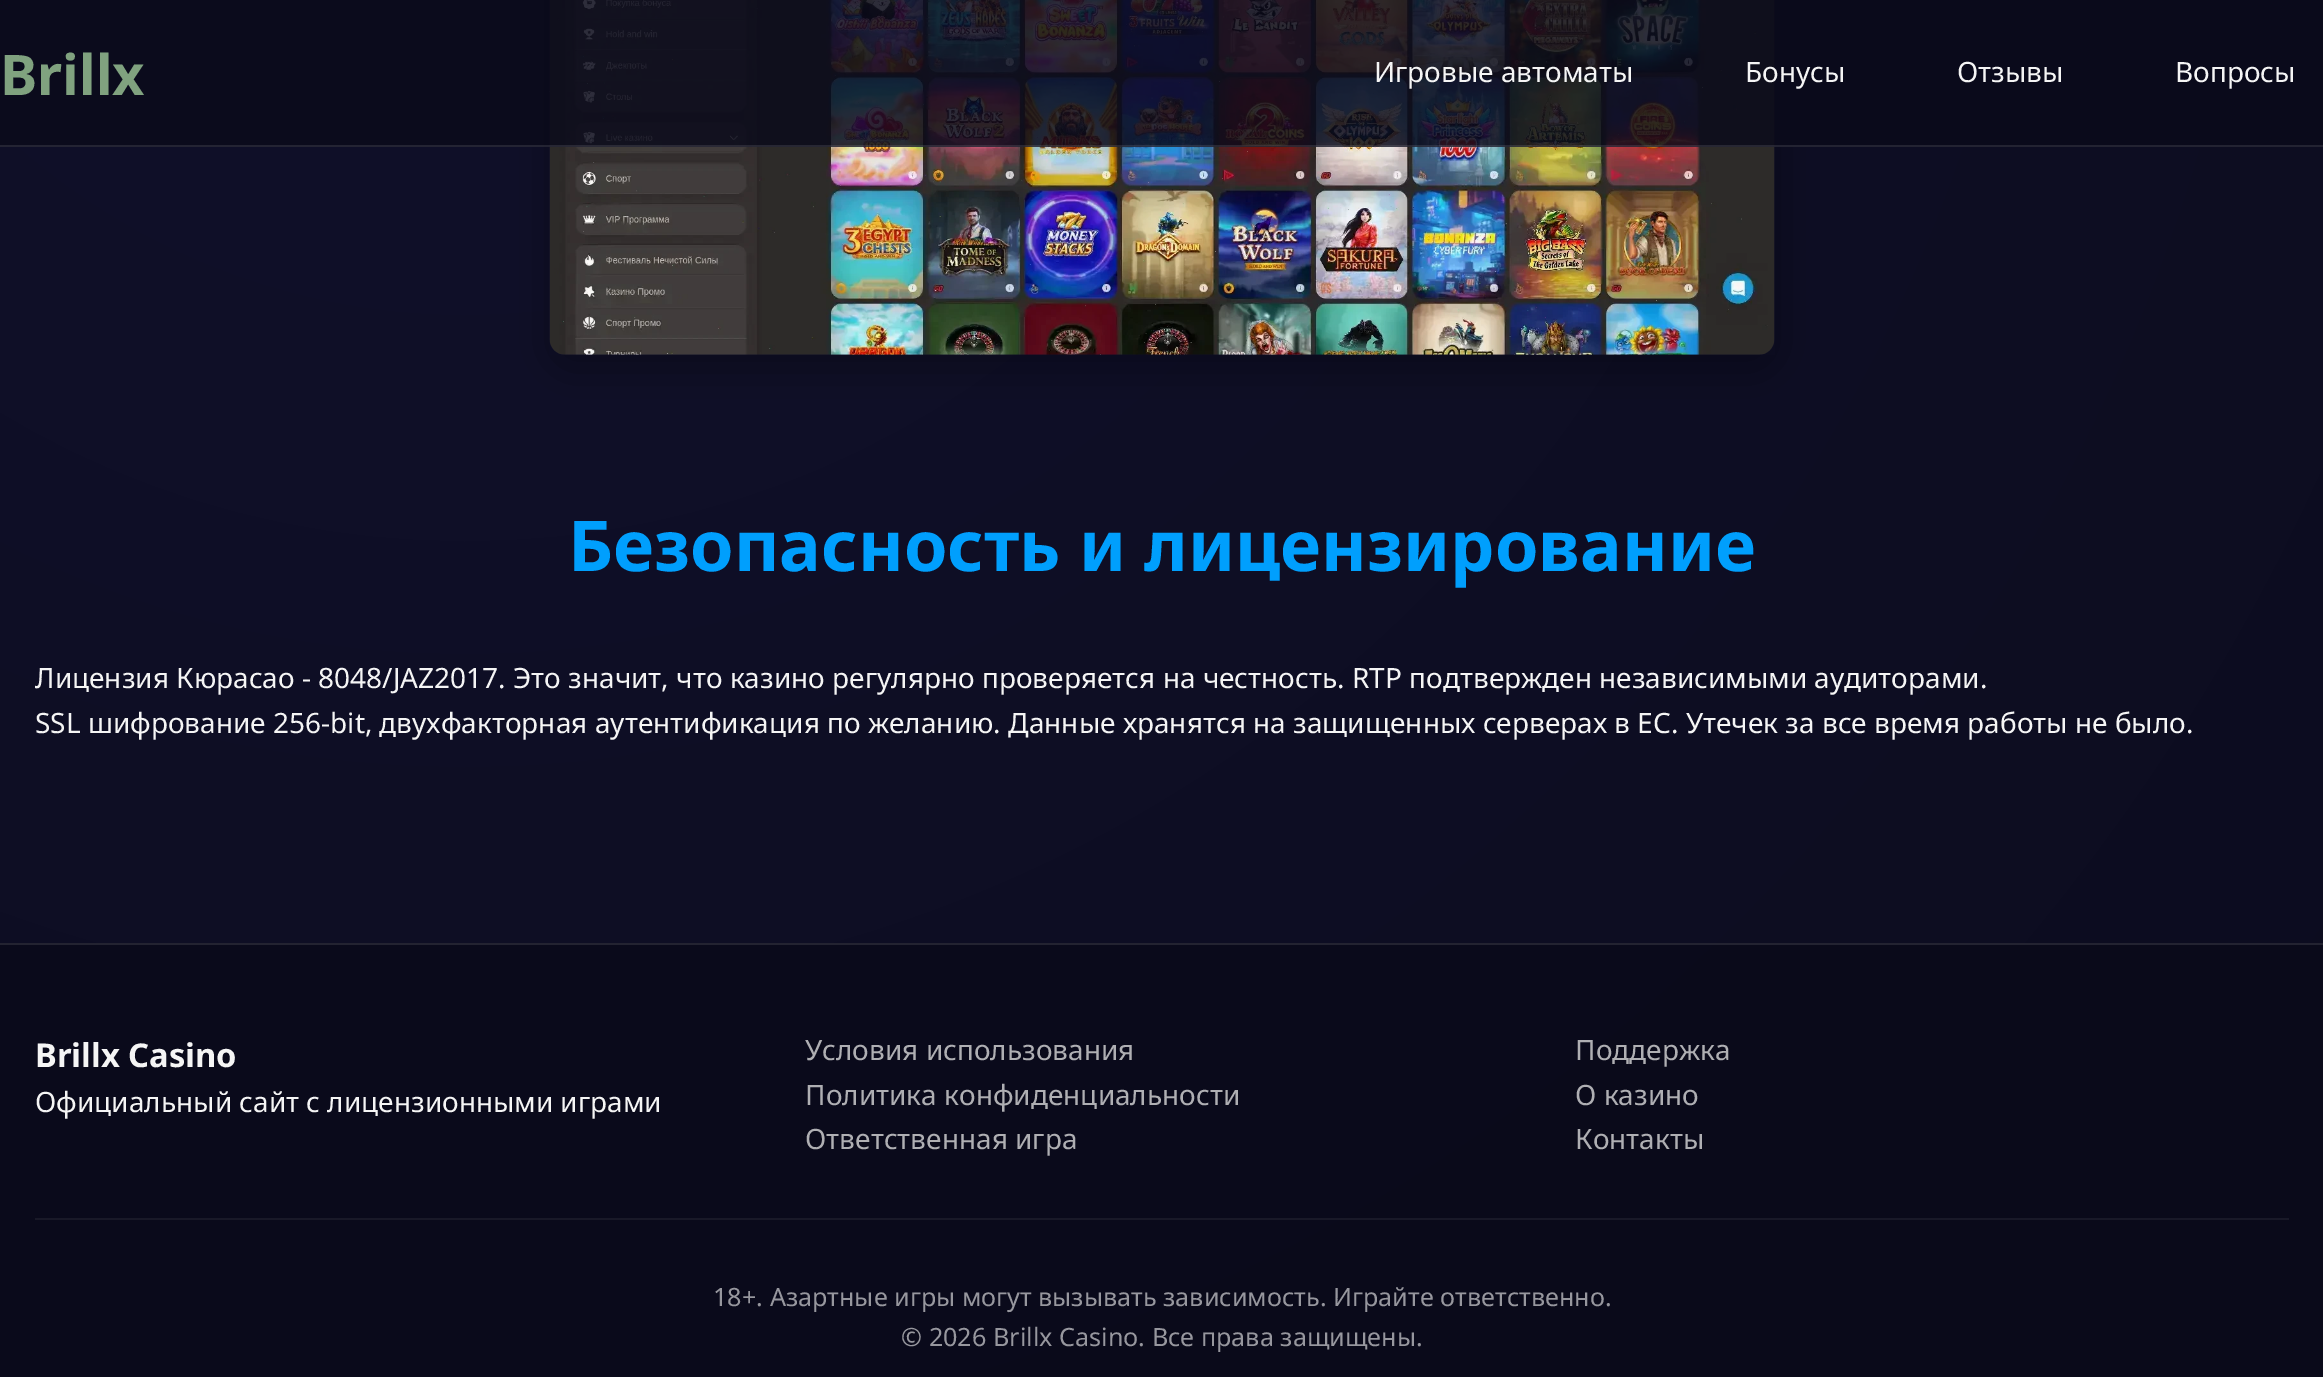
%!PS-Adobe-3.0
%%BoundingBox: 0 0 2323 1377
%%LanguageLevel: 3
%%Pages: 1
%%EndComments
%%BeginProlog
/m { moveto } bind def
/l { lineto } bind def
/h { closepath } bind def
/q { gsave } bind def
/Q { grestore } bind def
/fn { [ exch dup neg 0 0 3 -1 roll 0 0 ] selectfont } def
/tx { moveto show } def
/bx { rectfill } def
/al { dup .setfillconstantalpha .setstrokeconstantalpha } def
/rr { 5 dict begin { /r /h /w /y /x } { exch def } forall
  x r add y moveto x w add y 2 copy h add r arct x w add y h add x 1 index r arct
  x y h add x y r arct x y 2 copy exch w add exch r arct closepath end } def
/sh { 12 dict begin { /a /b /q /h /w /y /x } { exch def } forall gsave /was 0 def
  9 -2 -9 { dup b mul 4 div /e exch def 1 sub .425 mul 2.718 exch exp 1 add a .99 .min exch div /now exch def
    1 1 now sub 1 was sub div sub al /was now def
    w h .min e 2 mul add 0 gt { x e sub y e sub w e 2 mul add h e 2 mul add
      q e add b .6 mul add w h .min 2 div e add .min 0 .max rr fill } if } for grestore end } def
/im { 5 dict begin { /h /w /y /x /name } { exch def } forall
  gsave x y translate w h scale
  w h 8 [w 0 0 h 0 0] name (r) file false 3 colorimage grestore end } def
%%EndProlog
%%BeginSetup
<< /PageSize [2323 1377] /PageUsesTransparency true >> setpagedevice
%%EndSetup
%%Page: 1 1
0 .pushpdf14devicefilter
0 1377 translate 1 -1 scale
4 setmiterlimit
1 setgray
0 0 2323 1377 bx
q 0 0 m 2323 0 l 2323 943 l 0 943 l h clip newpath 465 -363 translate 7233 7233 scale
<< /ShadingType 3 /ColorSpace /DeviceRGB /Coords [0 0 0 0 0 1] /Extend [true true] /Function << /FunctionType 3 /Domain [0 1] /Functions [<< /FunctionType 2 /Domain [0 1] /C0 [0.063 0.063 0.169] /C1 [0.039 0.039 0.098] /N 1 >> << /FunctionType 2 /Domain [0 1] /C0 [0.039 0.039 0.098] /C1 [0.039 0.039 0.098] /N 1 >>] /Bounds [0.5] /Encode [0 1 0 1] >> >> shfill Q
q 0 945 m 2323 945 l 2323 1377 l 0 1377 l h clip newpath 465 -363 translate 7233 7233 scale
<< /ShadingType 3 /ColorSpace /DeviceRGB /Coords [0 0 0 0 0 1] /Extend [true true] /Function << /FunctionType 3 /Domain [0 1] /Functions [<< /FunctionType 2 /Domain [0 1] /C0 [0.039 0.039 0.106] /C1 [0.039 0.039 0.102] /N 1 >> << /FunctionType 2 /Domain [0 1] /C0 [0.039 0.039 0.102] /C1 [0.039 0.039 0.102] /N 1 >>] /Bounds [0.5] /Encode [0 1 0 1] >> >> shfill Q
0 setgray
550 -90 1225 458 16 24.5 0.32 sh
(image0.raw) 549 0 1226 355 im
0.85 al
0.039 0.039 0.102 setrgbcolor
0 0 2323 147 bx
0.1 al
1 setgray
0 145 2323 2 bx
/NotoSans-Bold 56 fn
1 al
0.502 0.635 0.498 setrgbcolor
(Brillx) 0 95 tx
/NotoSans-Regular 28 fn
0.961 setgray
(Игровые автоматы) 1374 82 tx
(Бонусы) 1745 82 tx
(Отзывы) 1957 82 tx
(Вопросы) 2175 82 tx
/NotoSans-Bold 70 fn
0 0.624 0.992 setrgbcolor
(Безопасность и лицензирование) 568 571 tx
/NotoSans-Regular 28 fn
0.961 setgray
(Лицензия Кюрасао - 8048/JAZ2017. Это значит, что казино регулярно проверяется на честность. RTP подтвержден независимыми аудиторами.) 35 688 tx
(SSL шифрование 256-bit, двухфакторная аутентификация по желанию. Данные хранятся на защищенных серверах в ЕС. Утечек за все время работы не было.) 35 733 tx
0.137 0.137 0.192 setrgbcolor
0 943 2323 2 bx
/NotoSans-Bold 32.75 fn
0.961 setgray
(Brillx Casino) 35 1067 tx
/NotoSans-Regular 28 fn
(Официальный сайт с лицензионными играми) 35 1112 tx
0.686 0.686 0.702 setrgbcolor
(Условия использования) 805 1060 tx
(Политика конфиденциальности) 805 1105 tx
(Ответственная игра) 805 1149 tx
(Поддержка) 1575 1060 tx
(О казино) 1575 1105 tx
(Контакты) 1575 1149 tx
0.098 0.098 0.157 setrgbcolor
35 1218 2254 2 bx
/NotoSans-Regular 25.2 fn
0.592 0.592 0.62 setrgbcolor
(18+. Азартные игры могут вызывать зависимость. Играйте ответственно.) 713 1306 tx
(© 2026 Brillx Casino. Все права защищены.) 901 1346 tx
.poppdf14devicefilter showpage
%%EOF
